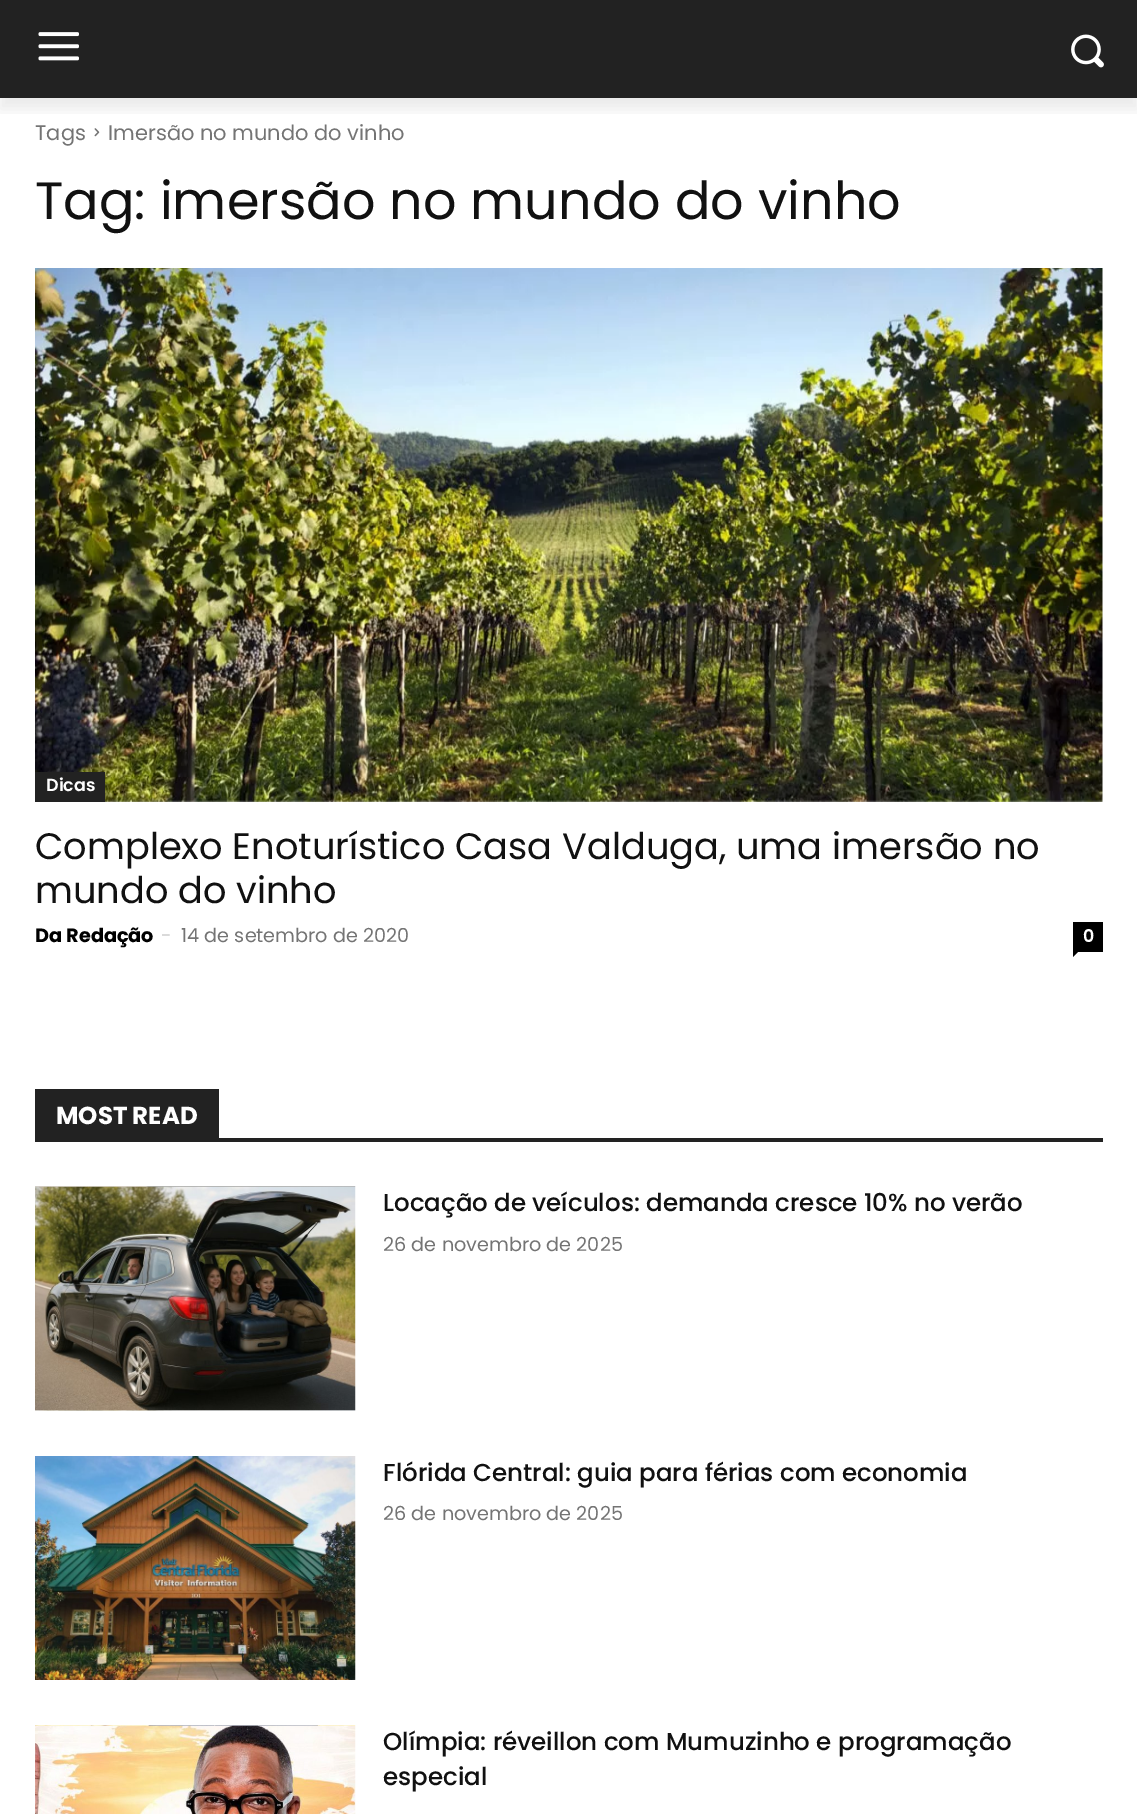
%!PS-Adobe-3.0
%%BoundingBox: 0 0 1137 1814
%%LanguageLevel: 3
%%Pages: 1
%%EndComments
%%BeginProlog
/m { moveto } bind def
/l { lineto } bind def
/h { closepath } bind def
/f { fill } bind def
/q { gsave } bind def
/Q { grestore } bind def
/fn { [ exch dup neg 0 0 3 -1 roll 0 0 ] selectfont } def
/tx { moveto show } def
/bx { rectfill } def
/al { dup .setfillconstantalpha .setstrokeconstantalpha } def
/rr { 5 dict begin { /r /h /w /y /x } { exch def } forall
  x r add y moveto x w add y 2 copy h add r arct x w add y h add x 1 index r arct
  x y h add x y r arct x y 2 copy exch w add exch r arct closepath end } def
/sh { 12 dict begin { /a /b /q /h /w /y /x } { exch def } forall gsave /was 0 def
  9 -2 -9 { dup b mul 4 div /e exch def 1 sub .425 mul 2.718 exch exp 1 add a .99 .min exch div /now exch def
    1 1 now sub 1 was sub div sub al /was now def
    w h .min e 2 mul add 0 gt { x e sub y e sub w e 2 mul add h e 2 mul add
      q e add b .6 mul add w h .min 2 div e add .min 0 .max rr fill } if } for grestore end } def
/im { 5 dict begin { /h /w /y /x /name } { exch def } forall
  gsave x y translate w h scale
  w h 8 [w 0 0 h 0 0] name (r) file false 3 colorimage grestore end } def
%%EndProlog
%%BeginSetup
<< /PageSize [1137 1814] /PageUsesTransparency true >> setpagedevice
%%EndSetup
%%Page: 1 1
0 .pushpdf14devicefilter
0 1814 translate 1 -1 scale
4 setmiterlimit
1 setgray
0 0 1137 1814 bx
0.133 setgray
0 0 1137 98 bx
(image0.raw) 38 32 41 29 im
(image1.raw) 1071 34 33 34 im
(image2.raw) 94 128 6 9 im
q
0 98 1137 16 rectclip
0 setgray
0 11 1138 98 0 7 0.08 sh
Q
/Poppins-Regular 21 fn
0.455 setgray
(Tags) 35 140 tx
(Imersão no mundo do vinho) 108 140 tx
/Poppins-Regular 52.5 fn
0.067 setgray
(Tag: imersão no mundo do vinho) 35 219 tx
(image3.raw) 35 268 1068 534 im
0.133 setgray
35 772 70 30 bx
/Poppins-SemiBold 17.5 fn
1 setgray
(Dicas) 46 791 tx
/Poppins-Regular 36.75 fn
0.067 setgray
(Complexo Enoturístico Casa Valduga, uma imersão no) 35 859 tx
(mundo do vinho) 35 903 tx
/Poppins-Bold 19.25 fn
0 setgray
(Da Redação) 35 942 tx
/Poppins-Regular 19.25 fn
0.8 setgray
(-) 161 942 tx
0.455 setgray
(14 de setembro de 2020) 181 942 tx
0 setgray
1073 922 30 30 bx
/Poppins-SemiBold 17.5 fn
1 setgray
(0) 1083 942 tx
0 setgray
1073 952 m 1078 952 l 1073 957 l h f
0.133 setgray
35 1138 1068 4 bx
35 1089 184 49 bx
/Poppins-Bold 24.5 fn
1 setgray
(MOST READ) 56 1124 tx
(image4.raw) 35 1186 321 225 im
/Poppins-Medium 24.5 fn
0.067 setgray
(Locação de veículos: demanda cresce 10% no verão) 383 1211 tx
/Poppins-Regular 19.25 fn
0.455 setgray
(26 de novembro de 2025) 383 1251 tx
(image5.raw) 35 1456 321 224 im
/Poppins-Medium 24.5 fn
0.067 setgray
(Flórida Central: guia para férias com economia) 383 1481 tx
/Poppins-Regular 19.25 fn
0.455 setgray
(26 de novembro de 2025) 383 1520 tx
(image6.raw) 35 1725 321 89 im
/Poppins-Medium 24.5 fn
0.067 setgray
(Olímpia: réveillon com Mumuzinho e programação) 383 1750 tx
(especial) 383 1785 tx
.poppdf14devicefilter showpage
%%EOF
